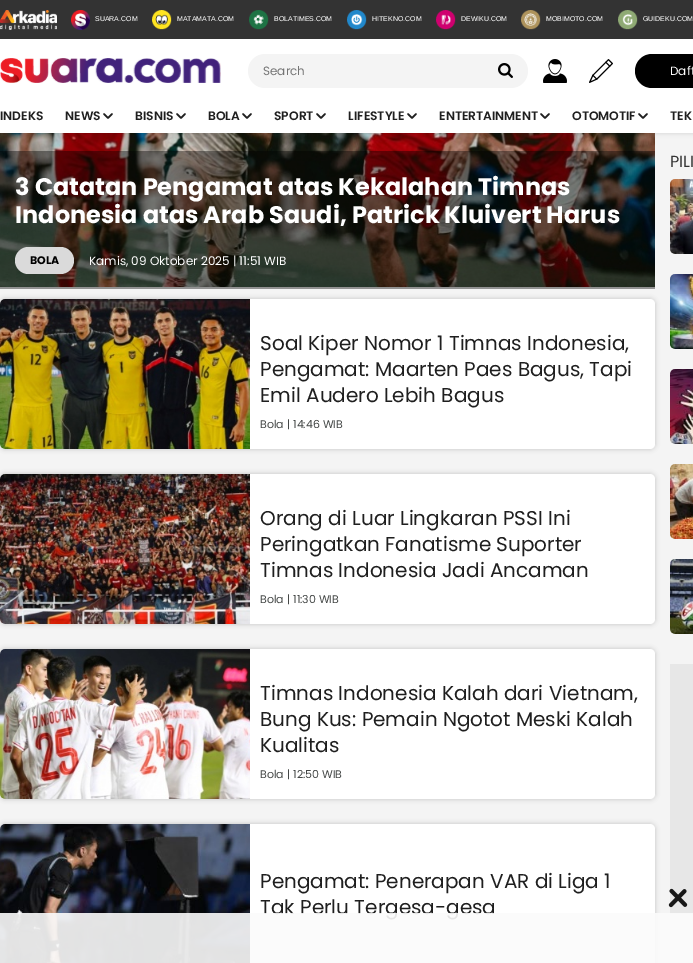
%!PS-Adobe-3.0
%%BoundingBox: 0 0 693 963
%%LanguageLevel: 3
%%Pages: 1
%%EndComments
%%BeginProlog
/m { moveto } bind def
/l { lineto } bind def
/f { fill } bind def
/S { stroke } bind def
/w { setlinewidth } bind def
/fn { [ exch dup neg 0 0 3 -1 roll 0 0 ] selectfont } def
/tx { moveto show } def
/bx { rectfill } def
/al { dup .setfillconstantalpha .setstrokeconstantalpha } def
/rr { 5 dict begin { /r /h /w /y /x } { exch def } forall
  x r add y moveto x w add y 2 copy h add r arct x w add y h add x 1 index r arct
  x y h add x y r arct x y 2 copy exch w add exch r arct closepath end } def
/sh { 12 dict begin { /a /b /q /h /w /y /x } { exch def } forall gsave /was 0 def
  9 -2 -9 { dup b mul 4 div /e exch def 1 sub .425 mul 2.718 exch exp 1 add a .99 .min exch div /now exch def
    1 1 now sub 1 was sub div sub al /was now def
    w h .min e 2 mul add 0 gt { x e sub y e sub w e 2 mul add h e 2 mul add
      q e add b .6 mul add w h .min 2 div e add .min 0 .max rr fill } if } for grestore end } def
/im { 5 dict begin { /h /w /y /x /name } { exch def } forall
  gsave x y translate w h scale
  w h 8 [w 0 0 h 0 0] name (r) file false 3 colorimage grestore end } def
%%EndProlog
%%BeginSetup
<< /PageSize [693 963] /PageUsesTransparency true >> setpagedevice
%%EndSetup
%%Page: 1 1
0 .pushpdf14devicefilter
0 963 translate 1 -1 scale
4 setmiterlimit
0.957 setgray
0 0 693 963 bx
(image17.raw) 0 133 655 154 im
0 setgray
-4 -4 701 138 0 2 0.1 sh
1 setgray
0 39 693 94 bx
0.2 setgray
0 0 693 39 bx
(image0.raw) 0 10 57 20 im
(image1.raw) 71 10 19 20 im
/LiberationSans-Regular 7 fn
1 setgray
(SUARA.COM) 95 21 tx
(image2.raw) 152 10 20 20 im
(MATAMATA.COM) 177 21 tx
(image3.raw) 249 10 20 20 im
(BOLATIMES.COM) 274 21 tx
(image4.raw) 347 10 20 20 im
(HITEKNO.COM) 372 21 tx
(image5.raw) 436 10 20 20 im
(DEWIKU.COM) 461 21 tx
(image6.raw) 521 10 20 20 im
(MOBIMOTO.COM) 546 21 tx
(image7.raw) 618 10 20 20 im
(GUIDEKU.COM) 643 21 tx
(image8.raw) 0 58 221 25 im
0.957 setgray
248 54 280 34 17 rr f
/Poppins-Regular 12 fn
0.459 setgray
(Search) 263 75 tx
(image9.raw) 498 63 15 15 im
(image10.raw) 543 59 24 24 im
(image11.raw) 589 59 24 24 im
0 setgray
635 54 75 34 17 rr f
1 setgray
(Daft) 670 75 tx
/Poppins-SemiBold 12.25 fn
0.122 setgray
(INDEKS) 0 120 tx
(NEWS) 65 120 tx
1.7 w
1 setlinecap
1 setlinejoin
104 114 m 108 118 l 112 114 l S
(BISNIS) 135 120 tx
177 114 m 181 118 l 185 114 l S
(BOLA) 208 120 tx
243 114 m 247 118 l 251 114 l S
(SPORT) 274 120 tx
317 114 m 321 118 l 325 114 l S
(LIFESTYLE) 348 120 tx
408 114 m 412 118 l 416 114 l S
(ENTERTAINMENT) 439 120 tx
541 114 m 545 118 l 549 114 l S
(OTOMOTIF) 572 120 tx
639 114 m 643 118 l 647 114 l S
(TEK) 670 120 tx
/Poppins-Regular 16 fn
0.2 setgray
(PILI) 670 167 tx
(image12.raw) 670 179 23 75 im
(image13.raw) 670 274 23 75 im
(image14.raw) 670 369 23 75 im
(image15.raw) 670 464 23 75 im
(image16.raw) 670 559 23 75 im
0.906 setgray
670 664 23 250 bx
0.4 al
0 setgray
0 151 655 138 bx
/Poppins-Bold 24 fn
1 al
1 setgray
(3 Catatan Pengamat atas Kekalahan Timnas) 15 195 tx
(Indonesia atas Arab Saudi, Patrick Kluivert Harus) 15 223 tx
0.855 setgray
15 247 59 27 13.5 rr f
/Poppins-Bold 11 fn
0 setgray
(BOLA) 30 264 tx
/Poppins-Regular 12 fn
1 setgray
(Kamis, 09 Oktober 2025 | 11:51 WIB) 89 265 tx
0 setgray
0 299 655 150 5 2.5 0.2 sh
1 setgray
0 299 655 150 5 rr f
(image18.raw) 0 299 250 150 im
/Poppins-Regular 20 fn
0.122 setgray
(Soal Kiper Nomor 1 Timnas Indonesia,) 260 350 tx
(Pengamat: Maarten Paes Bagus, Tapi) 260 376 tx
(Emil Audero Lebih Bagus) 260 402 tx
/Poppins-Regular 11 fn
0.267 0.278 0.275 setrgbcolor
(Bola | 14:46 WIB) 260 428 tx
0 setgray
0 474 655 150 5 2.5 0.2 sh
1 setgray
0 474 655 150 5 rr f
(image19.raw) 0 474 250 150 im
/Poppins-Regular 20 fn
0.122 setgray
(Orang di Luar Lingkaran PSSI Ini) 260 525 tx
(Peringatkan Fanatisme Suporter) 260 551 tx
(Timnas Indonesia Jadi Ancaman) 260 577 tx
/Poppins-Regular 11 fn
0.267 0.278 0.275 setrgbcolor
(Bola | 11:30 WIB) 260 603 tx
0 setgray
0 649 655 150 5 2.5 0.2 sh
1 setgray
0 649 655 150 5 rr f
(image20.raw) 0 649 250 150 im
/Poppins-Regular 20 fn
0.122 setgray
(Timnas Indonesia Kalah dari Vietnam,) 260 700 tx
(Bung Kus: Pemain Ngotot Meski Kalah) 260 726 tx
(Kualitas) 260 752 tx
/Poppins-Regular 11 fn
0.267 0.278 0.275 setrgbcolor
(Bola | 12:50 WIB) 260 778 tx
0 setgray
0 824 655 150 5 2.5 0.2 sh
1 setgray
0 824 655 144 5 rr f
(image21.raw) 0 824 250 139 im
/Poppins-Regular 20 fn
0.122 setgray
(Pengamat: Penerapan VAR di Liga 1) 260 888 tx
(Tak Perlu Tergesa-gesa) 260 914 tx
0.5 al
0.851 setgray
0 913 693 50 bx
0.8 al
1 setgray
0 913 693 50 bx
1 al
(image22.raw) 668 888 20 20 im
.poppdf14devicefilter showpage
%%EOF
